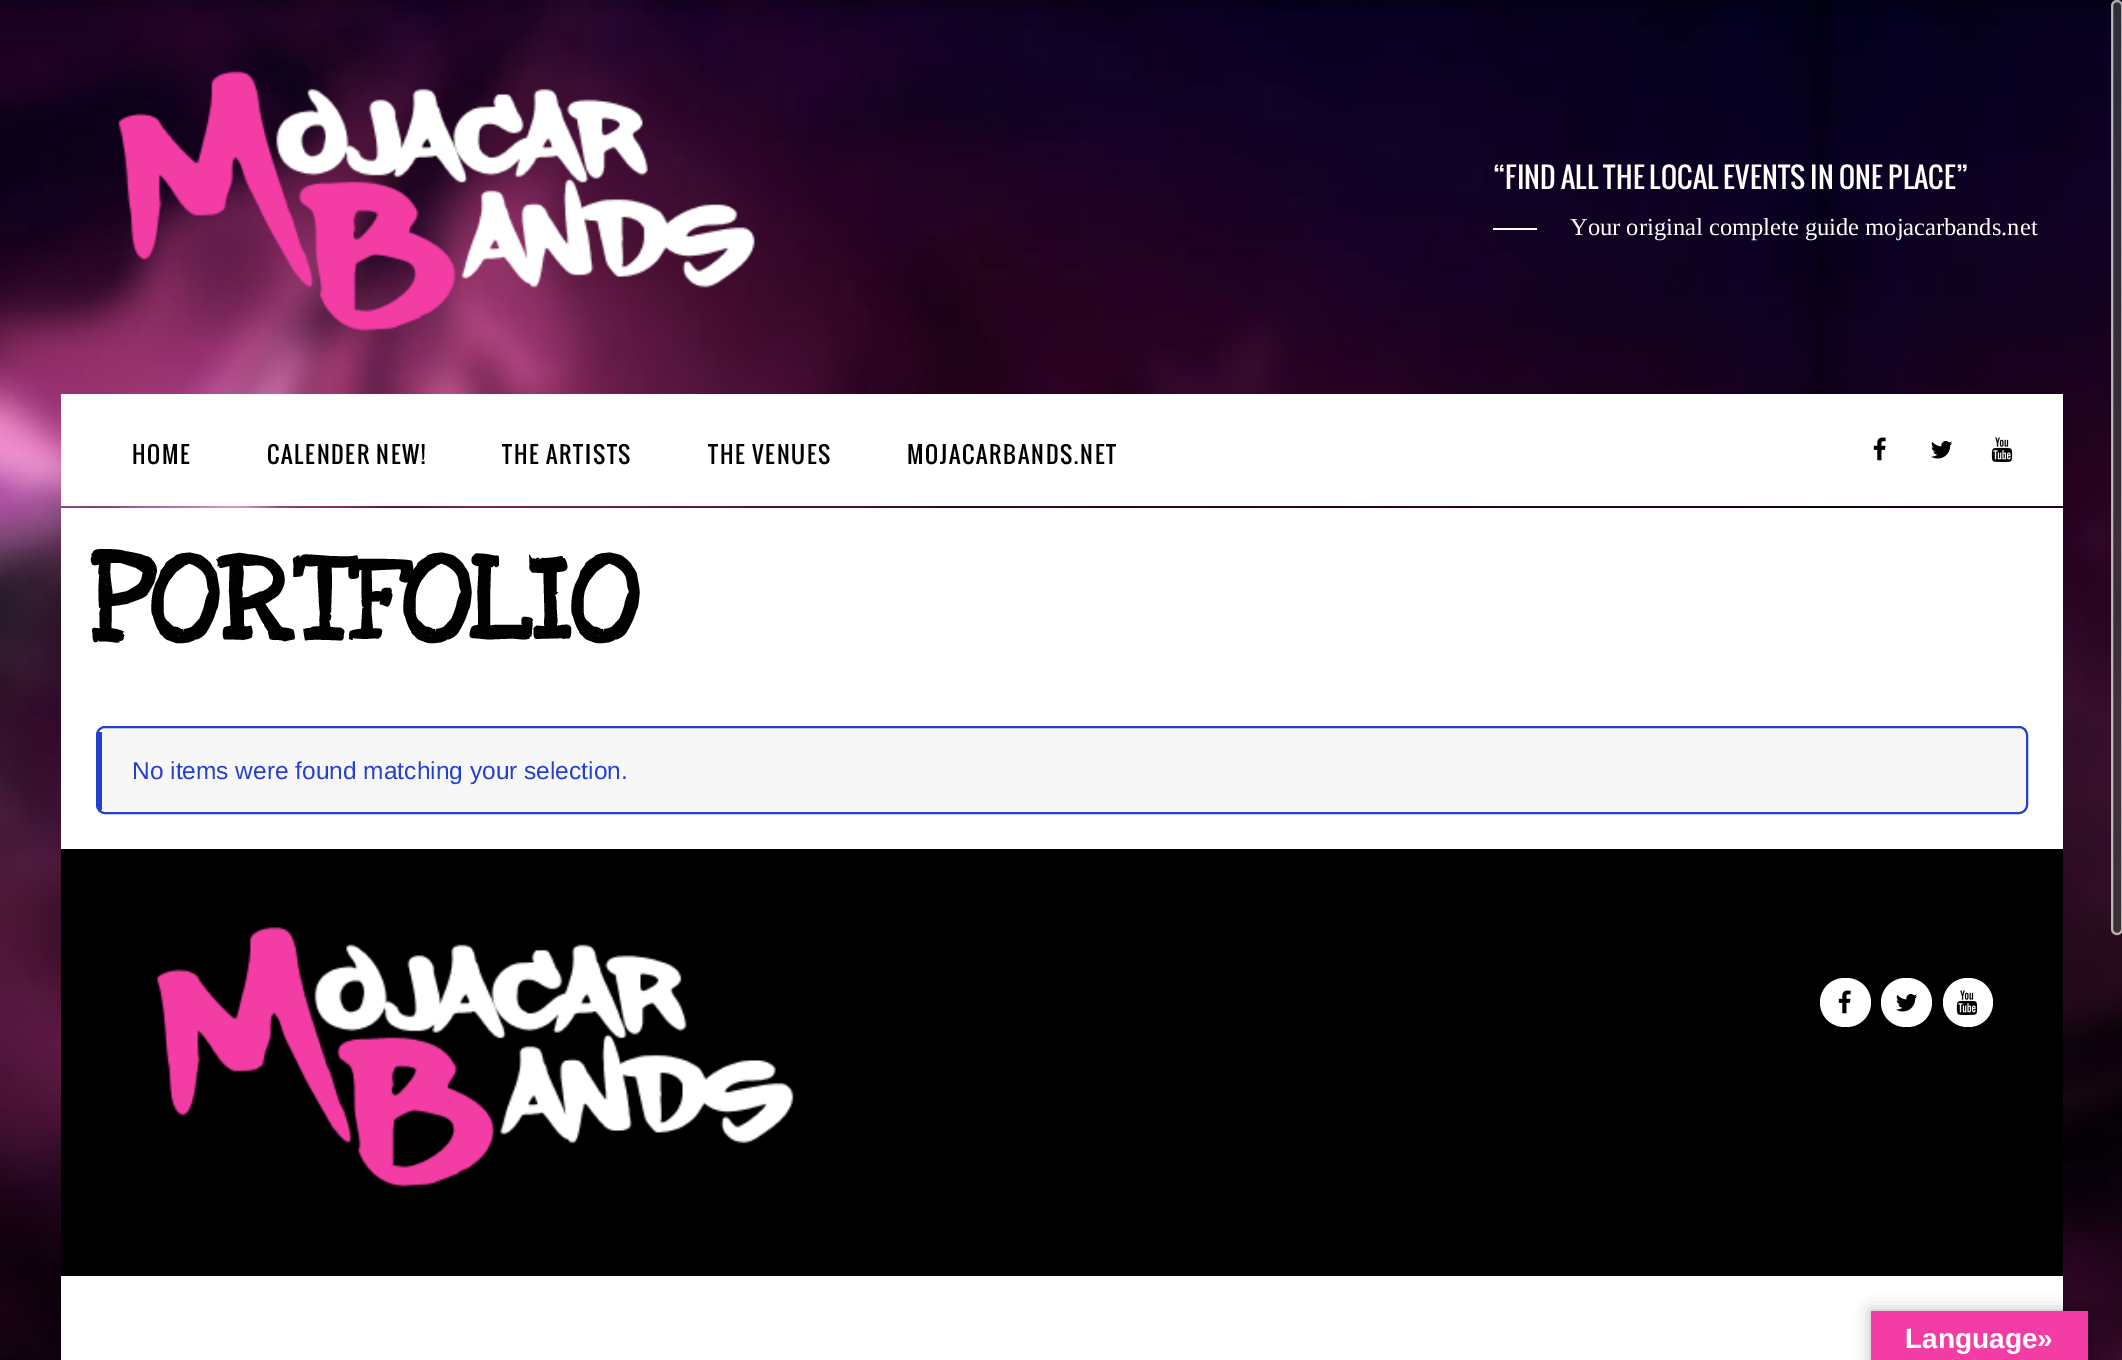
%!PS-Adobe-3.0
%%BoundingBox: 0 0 2122 1360
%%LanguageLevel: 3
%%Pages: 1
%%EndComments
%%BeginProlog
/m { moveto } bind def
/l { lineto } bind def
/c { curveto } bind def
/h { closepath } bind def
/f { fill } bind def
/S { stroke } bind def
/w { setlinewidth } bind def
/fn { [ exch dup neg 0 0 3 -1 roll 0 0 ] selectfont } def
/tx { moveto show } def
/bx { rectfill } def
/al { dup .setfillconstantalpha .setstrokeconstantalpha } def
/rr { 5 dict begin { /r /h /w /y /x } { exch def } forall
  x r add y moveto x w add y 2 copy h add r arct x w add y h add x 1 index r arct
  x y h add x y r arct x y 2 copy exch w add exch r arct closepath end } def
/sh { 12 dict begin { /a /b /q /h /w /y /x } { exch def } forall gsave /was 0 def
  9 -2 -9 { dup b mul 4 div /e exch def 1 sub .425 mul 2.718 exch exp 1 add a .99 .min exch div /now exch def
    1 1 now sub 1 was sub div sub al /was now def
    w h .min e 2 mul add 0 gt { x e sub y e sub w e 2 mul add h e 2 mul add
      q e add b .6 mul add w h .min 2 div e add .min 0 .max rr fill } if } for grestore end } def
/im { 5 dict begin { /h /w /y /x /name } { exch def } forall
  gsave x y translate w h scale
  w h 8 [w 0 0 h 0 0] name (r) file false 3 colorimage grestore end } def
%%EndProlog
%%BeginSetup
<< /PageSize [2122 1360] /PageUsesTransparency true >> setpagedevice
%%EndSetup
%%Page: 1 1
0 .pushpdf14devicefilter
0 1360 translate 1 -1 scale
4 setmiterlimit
1 setgray
0 0 2122 1360 bx
(image0.raw) 0 0 2122 1360 im
(image1.raw) 118 71 637 261 im
/Oswald-Regular 28 fn
1493 189 m 0.2 0 (“FIND ALL THE LOCAL EVENTS IN ONE PLACE”) ashow
1493 228 44 2 bx
/LiberationSerif-Regular 24.5 fn
(Your original complete guide mojacarbands.net) 1570 235 tx
61 394 2002 112 bx
/Oswald-Regular 22.75 fn
0.004 setgray
132 464 m 1.75 0 (HOME) ashow
267 464 m 1.75 0 (CALENDER NEW!) ashow
502 464 m 1.75 0 (THE ARTISTS) ashow
708 464 m 1.75 0 (THE VENUES) ashow
907 464 m 1.75 0 (MOJACARBANDS.NET) ashow
(image2.raw) 1873 437 13 24 im
(image3.raw) 1931 441 22 18 im
(image4.raw) 1991 437 22 25 im
1 setgray
61 508 2002 341 bx
/LoveYaLikeASister-Bold 122.5 fn
0.004 setgray
(PORTFOLIO) 90 639 tx
0.969 setgray
105 728 m 2020 728 l 2023 728 2026 731 2026 735 c 2026 805 l 2026 809 2023 812 2020 812 c 105 812 l 103 812 102 809 102 805 c 102 735 l 102 731 103 728 105 728 c h f
0.145 0.251 0.8 setrgbcolor
2 w
97 727 1930 86 8 rr S
98 732 4 78 bx
/LiberationSans-Regular 24.5 fn
(No items were found matching your selection.) 132 779 tx
0 setgray
61 849 2002 427 bx
(image5.raw) 157 927 637 260 im
1 setgray
1820 978 51 49 24.5 rr f
(image2.raw) 1838 990 13 24 im
1881 978 51 49 24.5 rr f
(image3.raw) 1896 994 22 18 im
1943 978 50 49 24.5 rr f
(image4.raw) 1956 990 22 25 im
61 1276 2002 84 bx
0.67 al
0.259 setgray
2112 2 9 931 4.5 rr f
1 setgray
2112 1 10 933 5 rr S
1 al
0 setgray
1871 1311 217 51 0 8 0.3 sh
0.953 0.235 0.643 setrgbcolor
1871 1311 217 49 bx
/LiberationSans-Bold 28 fn
1 setgray
(Language») 1905 1348 tx
.poppdf14devicefilter showpage
%%EOF
